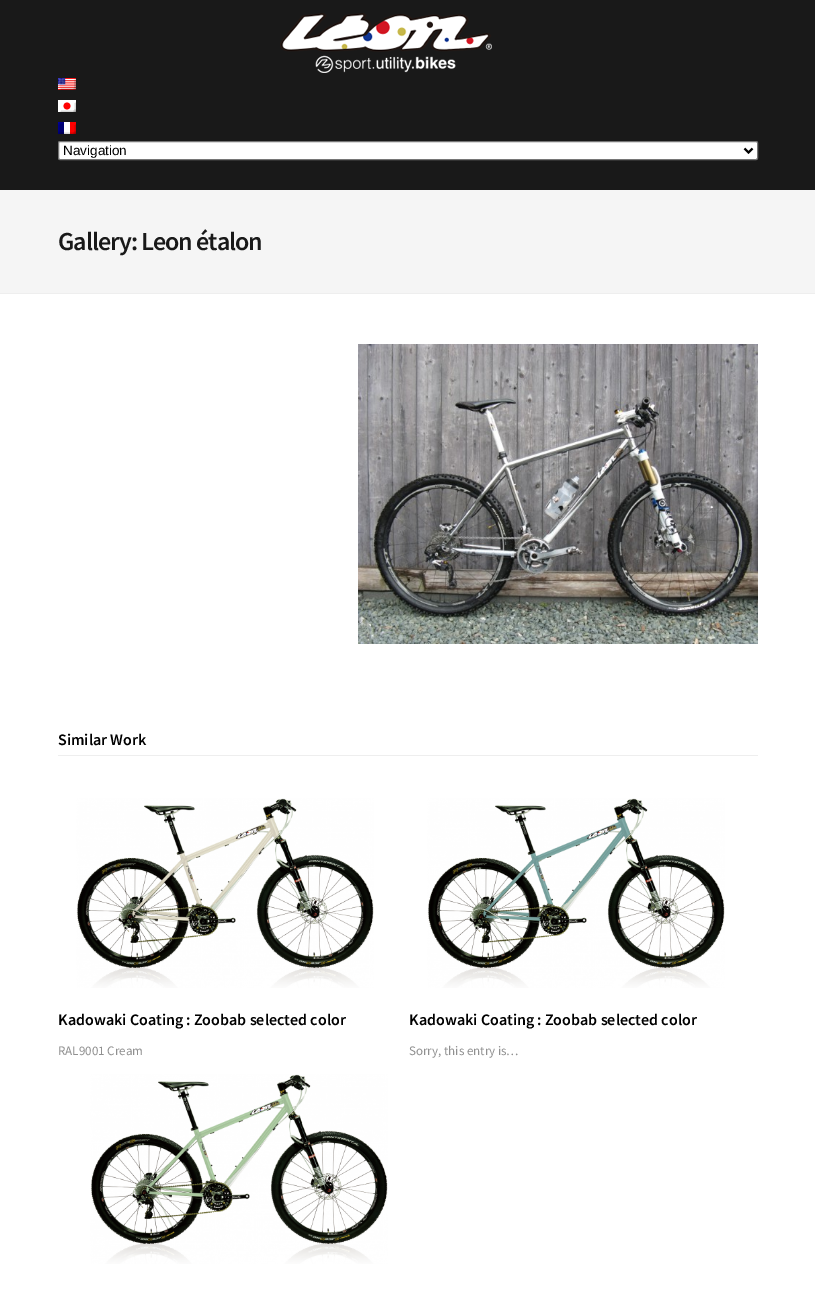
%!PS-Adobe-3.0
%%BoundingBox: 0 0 815 1292
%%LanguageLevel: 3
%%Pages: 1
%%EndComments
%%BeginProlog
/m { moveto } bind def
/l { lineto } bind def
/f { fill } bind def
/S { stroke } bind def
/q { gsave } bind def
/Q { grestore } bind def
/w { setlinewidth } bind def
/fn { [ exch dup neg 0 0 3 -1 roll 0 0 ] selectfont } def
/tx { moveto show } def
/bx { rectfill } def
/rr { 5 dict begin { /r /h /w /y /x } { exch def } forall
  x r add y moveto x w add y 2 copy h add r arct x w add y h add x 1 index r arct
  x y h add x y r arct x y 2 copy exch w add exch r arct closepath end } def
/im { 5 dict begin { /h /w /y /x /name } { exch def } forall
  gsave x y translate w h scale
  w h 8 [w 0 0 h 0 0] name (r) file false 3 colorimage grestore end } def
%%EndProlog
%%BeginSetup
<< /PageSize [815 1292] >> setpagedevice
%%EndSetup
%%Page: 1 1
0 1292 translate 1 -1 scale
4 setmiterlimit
1 setgray
0 0 815 1292 bx
0.098 setgray
0 0 815 190 bx
(image0.raw) 280 13 212 60 im
(image1.raw) 58 78 18 12 im
(image2.raw) 58 100 18 12 im
(image3.raw) 58 122 18 12 im
1 setgray
58.5 141.5 699 18 1.5 rr q f Q
0.463 setgray
S
0 setgray
2 w
744.5 148.5 m 748.5 152.5 l 752.5 148.5 l S
/LiberationSans-Regular 13.5 fn
(Navigation) 63 155 tx
0.961 setgray
0 190 815 103 bx
0.933 setgray
0 293 815 1 bx
/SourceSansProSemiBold-SemiBold 26 fn
0.098 setgray
58 250 m -1 0 (Gallery: Leon étalon) ashow
(image4.raw) 358 344 400 300 im
0.933 setgray
58 755 700 1 bx
/SourceSansProSemiBold-SemiBold 16 fn
0 setgray
(Similar Work) 58 745 tx
(image5.raw) 76 798 298 190 im
(Kadowaki Coating : Zoobab selected color) 58 1025 tx
/SourceSansPro-Regular 13 fn
0.565 setgray
(RAL9001 Cream) 58 1055 tx
(image6.raw) 427 798 298 190 im
/SourceSansProSemiBold-SemiBold 16 fn
0 setgray
(Kadowaki Coating : Zoobab selected color) 409 1025 tx
/SourceSansPro-Regular 13 fn
0.565 setgray
(Sorry, this entry is…) 409 1055 tx
(image7.raw) 90 1074 298 190 im
showpage
%%EOF
